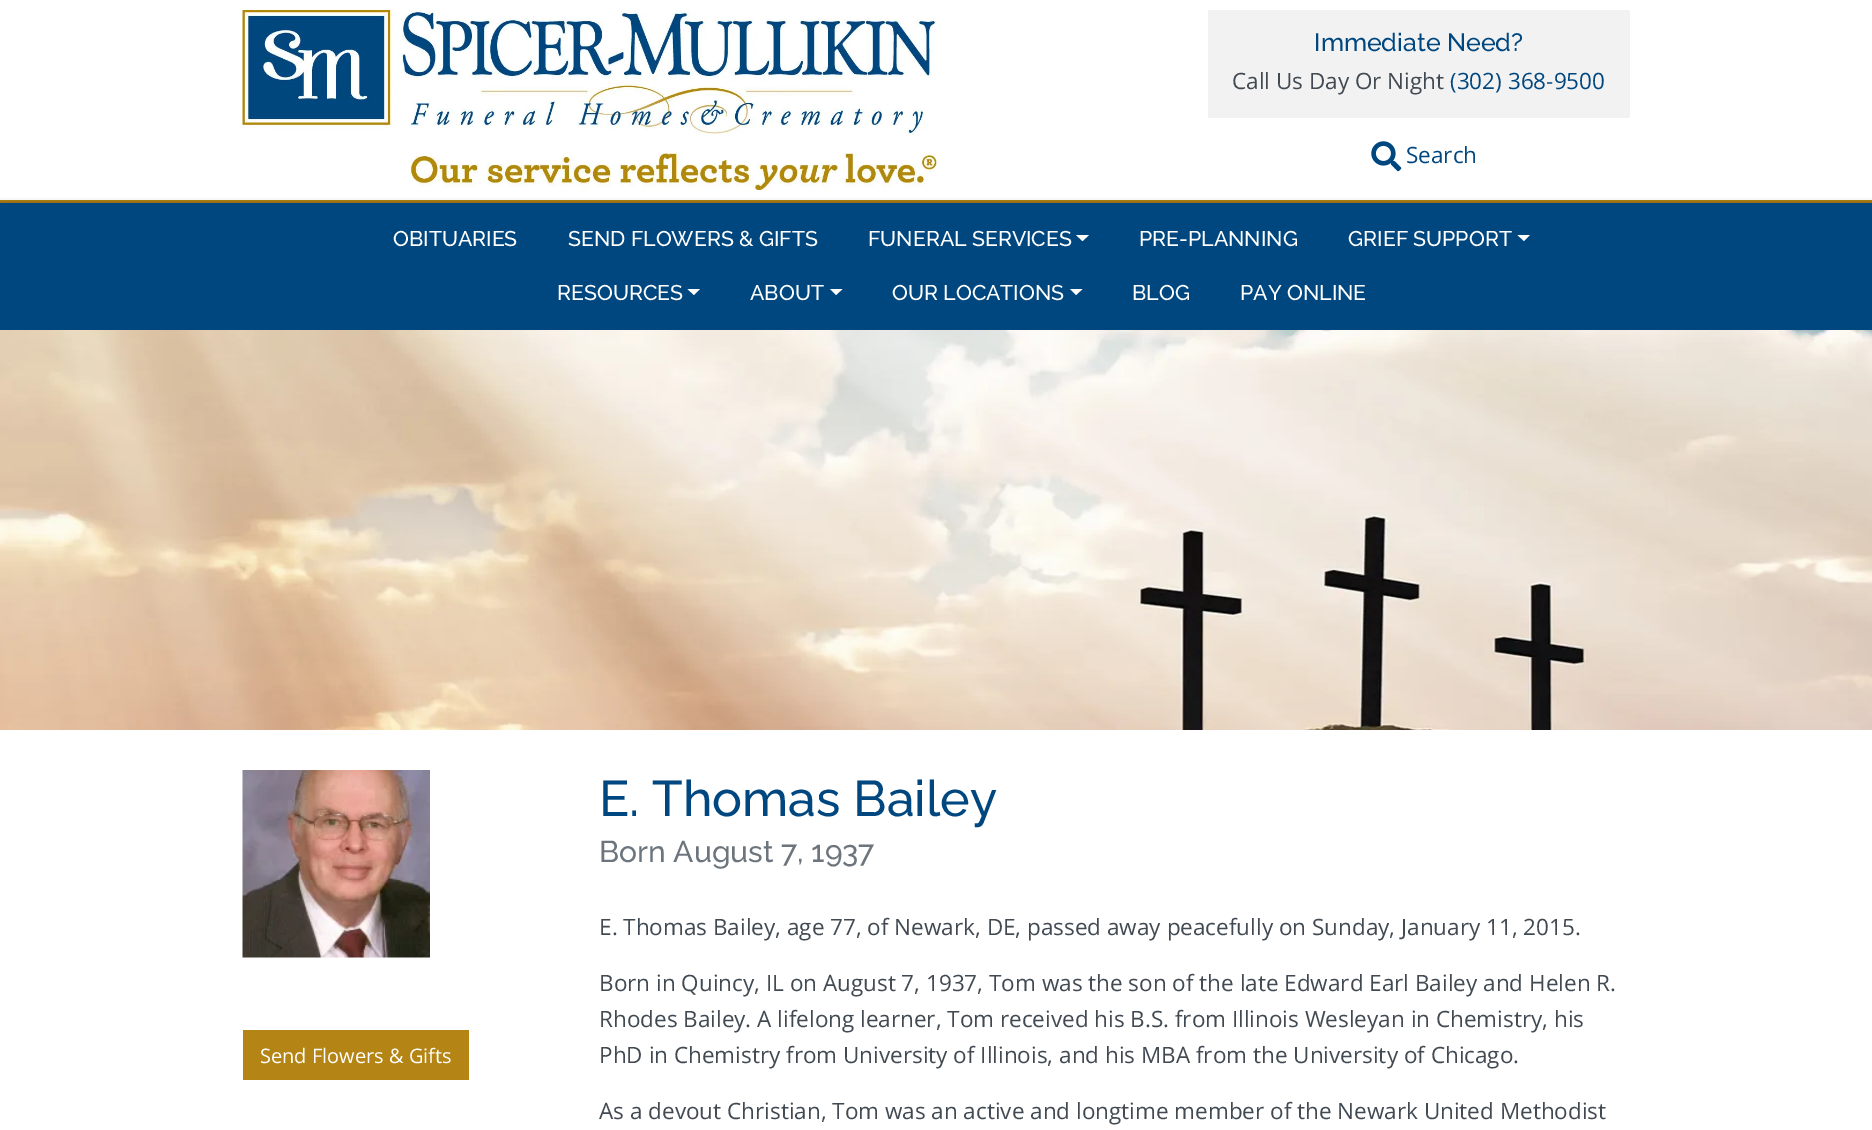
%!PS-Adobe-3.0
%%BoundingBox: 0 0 1872 1130
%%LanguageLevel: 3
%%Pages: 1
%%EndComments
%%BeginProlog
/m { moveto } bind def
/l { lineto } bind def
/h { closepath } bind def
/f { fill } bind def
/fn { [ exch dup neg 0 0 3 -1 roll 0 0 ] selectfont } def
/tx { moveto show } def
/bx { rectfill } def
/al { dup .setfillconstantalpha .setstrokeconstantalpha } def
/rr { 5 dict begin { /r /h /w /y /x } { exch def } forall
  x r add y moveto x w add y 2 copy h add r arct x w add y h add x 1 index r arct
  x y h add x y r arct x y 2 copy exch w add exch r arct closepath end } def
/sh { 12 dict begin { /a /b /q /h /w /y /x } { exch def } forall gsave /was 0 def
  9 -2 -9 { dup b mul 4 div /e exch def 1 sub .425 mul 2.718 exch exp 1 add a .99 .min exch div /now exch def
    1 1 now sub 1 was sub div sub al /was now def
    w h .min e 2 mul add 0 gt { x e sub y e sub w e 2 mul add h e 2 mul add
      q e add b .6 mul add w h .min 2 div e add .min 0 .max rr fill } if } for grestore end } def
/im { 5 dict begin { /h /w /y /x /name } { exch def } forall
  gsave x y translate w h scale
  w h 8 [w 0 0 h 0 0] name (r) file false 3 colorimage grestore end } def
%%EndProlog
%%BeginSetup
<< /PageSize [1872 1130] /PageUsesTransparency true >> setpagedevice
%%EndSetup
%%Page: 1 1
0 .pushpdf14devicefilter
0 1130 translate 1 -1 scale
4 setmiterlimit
1 setgray
0 0 1872 1130 bx
0.706 0.518 0.082 setrgbcolor
0 200 1872 3 bx
(image0.raw) 242 10 695 180 im
0.949 setgray
1208 10 422 108 bx
/Raleway-Medium 25 fn
0 0.278 0.498 setrgbcolor
(Immediate Need?) 1314 51 tx
/OpenSans-Regular 22.5 fn
0.255 0.29 0.322 setrgbcolor
(Call Us Day Or Night) 1232 89 tx
0 0.278 0.498 setrgbcolor
(\(302\) 368-9500) 1450 89 tx
(image1.raw) 1371 141 31 31 im
(Search) 1406 163 tx
0 setgray
0 203 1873 127 0 2.5 0.35 sh
0 0.278 0.498 setrgbcolor
0 203 1872 127 bx
/Raleway-Medium 21.25 fn
1 setgray
(OBITUARIES) 393 246 tx
(SEND FLOWERS & GIFTS) 568 246 tx
(FUNERAL SERVICES) 868 246 tx
1076 235 m 1089 235 l 1082.5 241 l h f
(PRE-PLANNING) 1139 246 tx
(GRIEF SUPPORT) 1348 246 tx
1517.5 235 m 1530 235 l 1524 241 l h f
(RESOURCES) 557 300 tx
687.5 289 m 700 289 l 694 295 l h f
(ABOUT) 750 300 tx
830 289 m 842.5 289 l 836 295 l h f
(OUR LOCATIONS) 892 300 tx
1070 289 m 1082.5 289 l 1076 295 l h f
(BLOG) 1132 300 tx
(PAY ONLINE) 1240 300 tx
(image2.raw) 0 330 1872 400 im
(image3.raw) 242 770 188 188 im
0.706 0.518 0.082 setrgbcolor
243 1030 226 50 bx
/OpenSans-Regular 20 fn
1 setgray
(Send Flowers & Gifts) 260 1063 tx
/Raleway-Medium 50 fn
0 0.278 0.498 setrgbcolor
(E. Thomas Bailey) 599 816 tx
/Raleway-Medium 30 fn
0.424 0.459 0.49 setrgbcolor
(Born August 7, 1937) 599 862 tx
/OpenSans-Regular 22.5 fn
0.255 0.29 0.322 setrgbcolor
(E. Thomas Bailey, age 77, of Newark, DE, passed away peacefully on Sunday, January 11, 2015.) 599 935 tx
(Born in Quincy, IL on August 7, 1937, Tom was the son of the late Edward Earl Bailey and Helen R.) 599 991 tx
(Rhodes Bailey. A lifelong learner, Tom received his B.S. from Illinois Wesleyan in Chemistry, his) 599 1027 tx
(PhD in Chemistry from University of Illinois, and his MBA from the University of Chicago.) 599 1063 tx
(As a devout Christian, Tom was an active and longtime member of the Newark United Methodist) 599 1119 tx
.poppdf14devicefilter showpage
%%EOF
